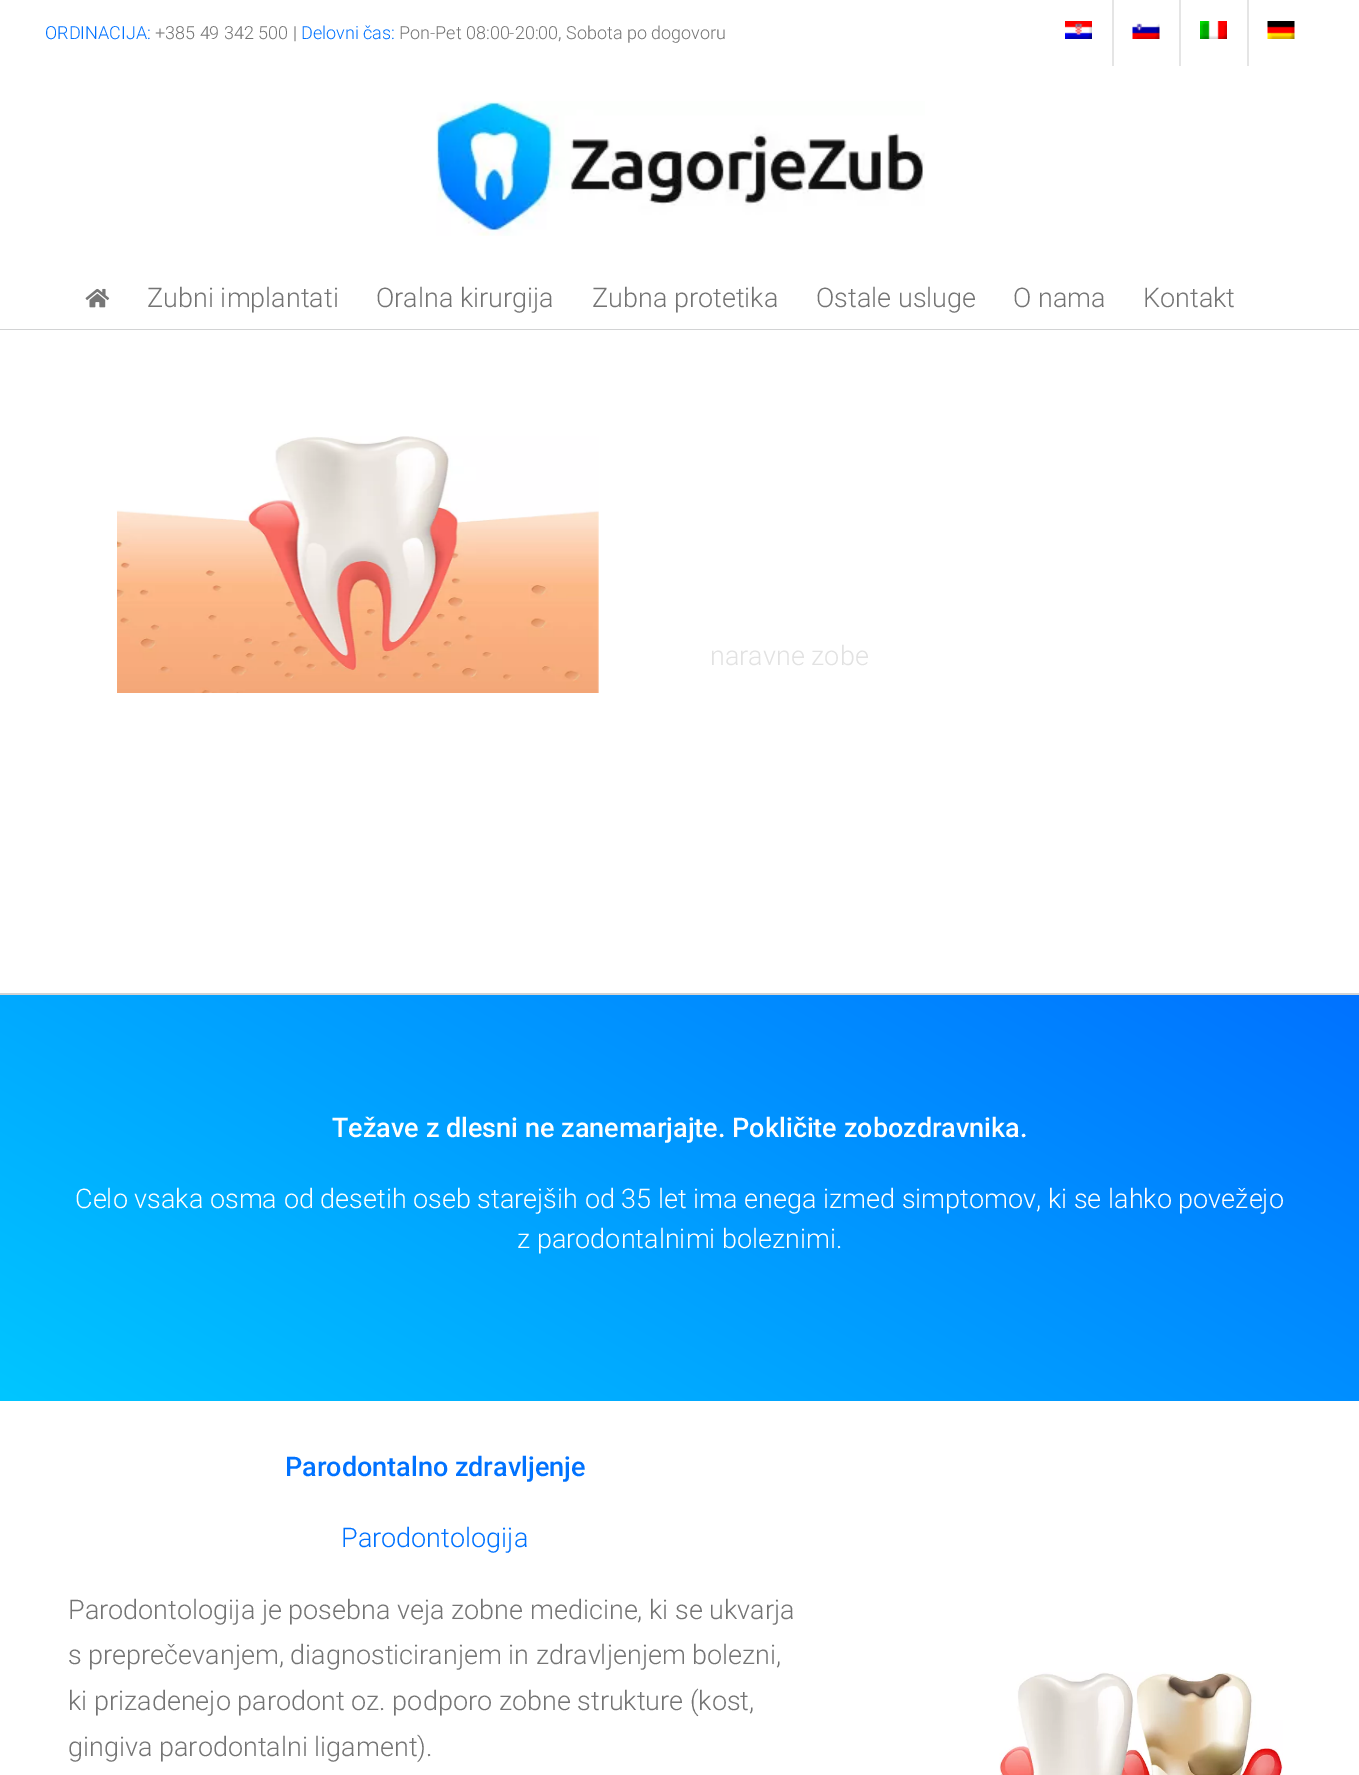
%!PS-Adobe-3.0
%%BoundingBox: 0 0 1359 1775
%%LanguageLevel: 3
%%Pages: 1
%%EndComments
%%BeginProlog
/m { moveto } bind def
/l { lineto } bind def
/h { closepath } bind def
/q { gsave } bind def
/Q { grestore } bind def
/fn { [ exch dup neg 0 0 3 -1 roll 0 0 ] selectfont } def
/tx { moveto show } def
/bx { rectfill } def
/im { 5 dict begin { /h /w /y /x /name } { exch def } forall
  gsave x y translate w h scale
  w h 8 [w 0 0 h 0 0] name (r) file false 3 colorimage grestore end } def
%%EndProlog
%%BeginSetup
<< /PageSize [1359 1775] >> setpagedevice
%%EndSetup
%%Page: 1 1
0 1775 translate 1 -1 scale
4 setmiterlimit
1 setgray
0 0 1359 1775 bx
/Roboto-Light 18 fn
0 0.447 1 setrgbcolor
(ORDINACIJA:) 45 39 tx
0.455 setgray
(+385 49 342 500 |) 155 39 tx
0 0.447 1 setrgbcolor
(Delovni čas:) 301 39 tx
0.455 setgray
(Pon-Pet 08:00-20:00, Sobota po dogovoru) 399 39 tx
(image0.raw) 1065 21 27 18 im
0.898 setgray
1112 0 2 66 bx
(image1.raw) 1132 23 28 16 im
1179 0 2 66 bx
(image2.raw) 1200 21 27 18 im
1247 0 2 66 bx
(image3.raw) 1267 21 28 18 im
(image4.raw) 436 101 489 135 im
(image5.raw) 85 288 25 20 im
/Roboto-Light 27 fn
0.455 setgray
(Zubni implantati) 147 307 tx
(Oralna kirurgija) 376 307 tx
(Zubna protetika) 592 307 tx
(Ostale usluge) 816 307 tx
(O nama) 1013 307 tx
(Kontakt) 1143 307 tx
0.824 0.827 0.831 setrgbcolor
0 329 1359 1 bx
0 993 1359 2 bx
(image6.raw) 117 436 482 257 im
0.886 setgray
(naravne zobe) 710 665 tx
q 0 995 m 1359 995 l 1359 1401 l 0 1401 l h clip newpath
<< /ShadingType 2 /ColorSpace /DeviceRGB /Coords [422 1644 937 751] /Extend [true true] /Function << /FunctionType 2 /Domain [0 1] /C0 [0 0.776 1] /C1 [0 0.447 1] /N 1 >> >> shfill Q
/Roboto-Medium 27 fn
1 setgray
(Težave z dlesni ne zanemarjajte. Pokličite zobozdravnika.) 332 1137 tx
/Roboto-Light 27 fn
(Celo vsaka osma od desetih oseb starejših od 35 let ima enega izmed simptomov, ki se lahko povežejo) 75 1208 tx
(z parodontalnimi boleznimi.) 517 1248 tx
/Roboto-Medium 27 fn
0 0.447 1 setrgbcolor
(Parodontalno zdravljenje) 285 1476 tx
/Roboto-Light 27 fn
(Parodontologija) 341 1547 tx
0.455 setgray
(Parodontologija je posebna veja zobne medicine, ki se ukvarja) 68 1619 tx
(s preprečevanjem, diagnosticiranjem in zdravljenjem bolezni,) 68 1664 tx
(ki prizadenejo parodont oz. podporo zobne strukture \(kost,) 68 1710 tx
(gingiva parodontalni ligament\).) 68 1756 tx
(image7.raw) 999 1672 284 103 im
showpage
%%EOF
